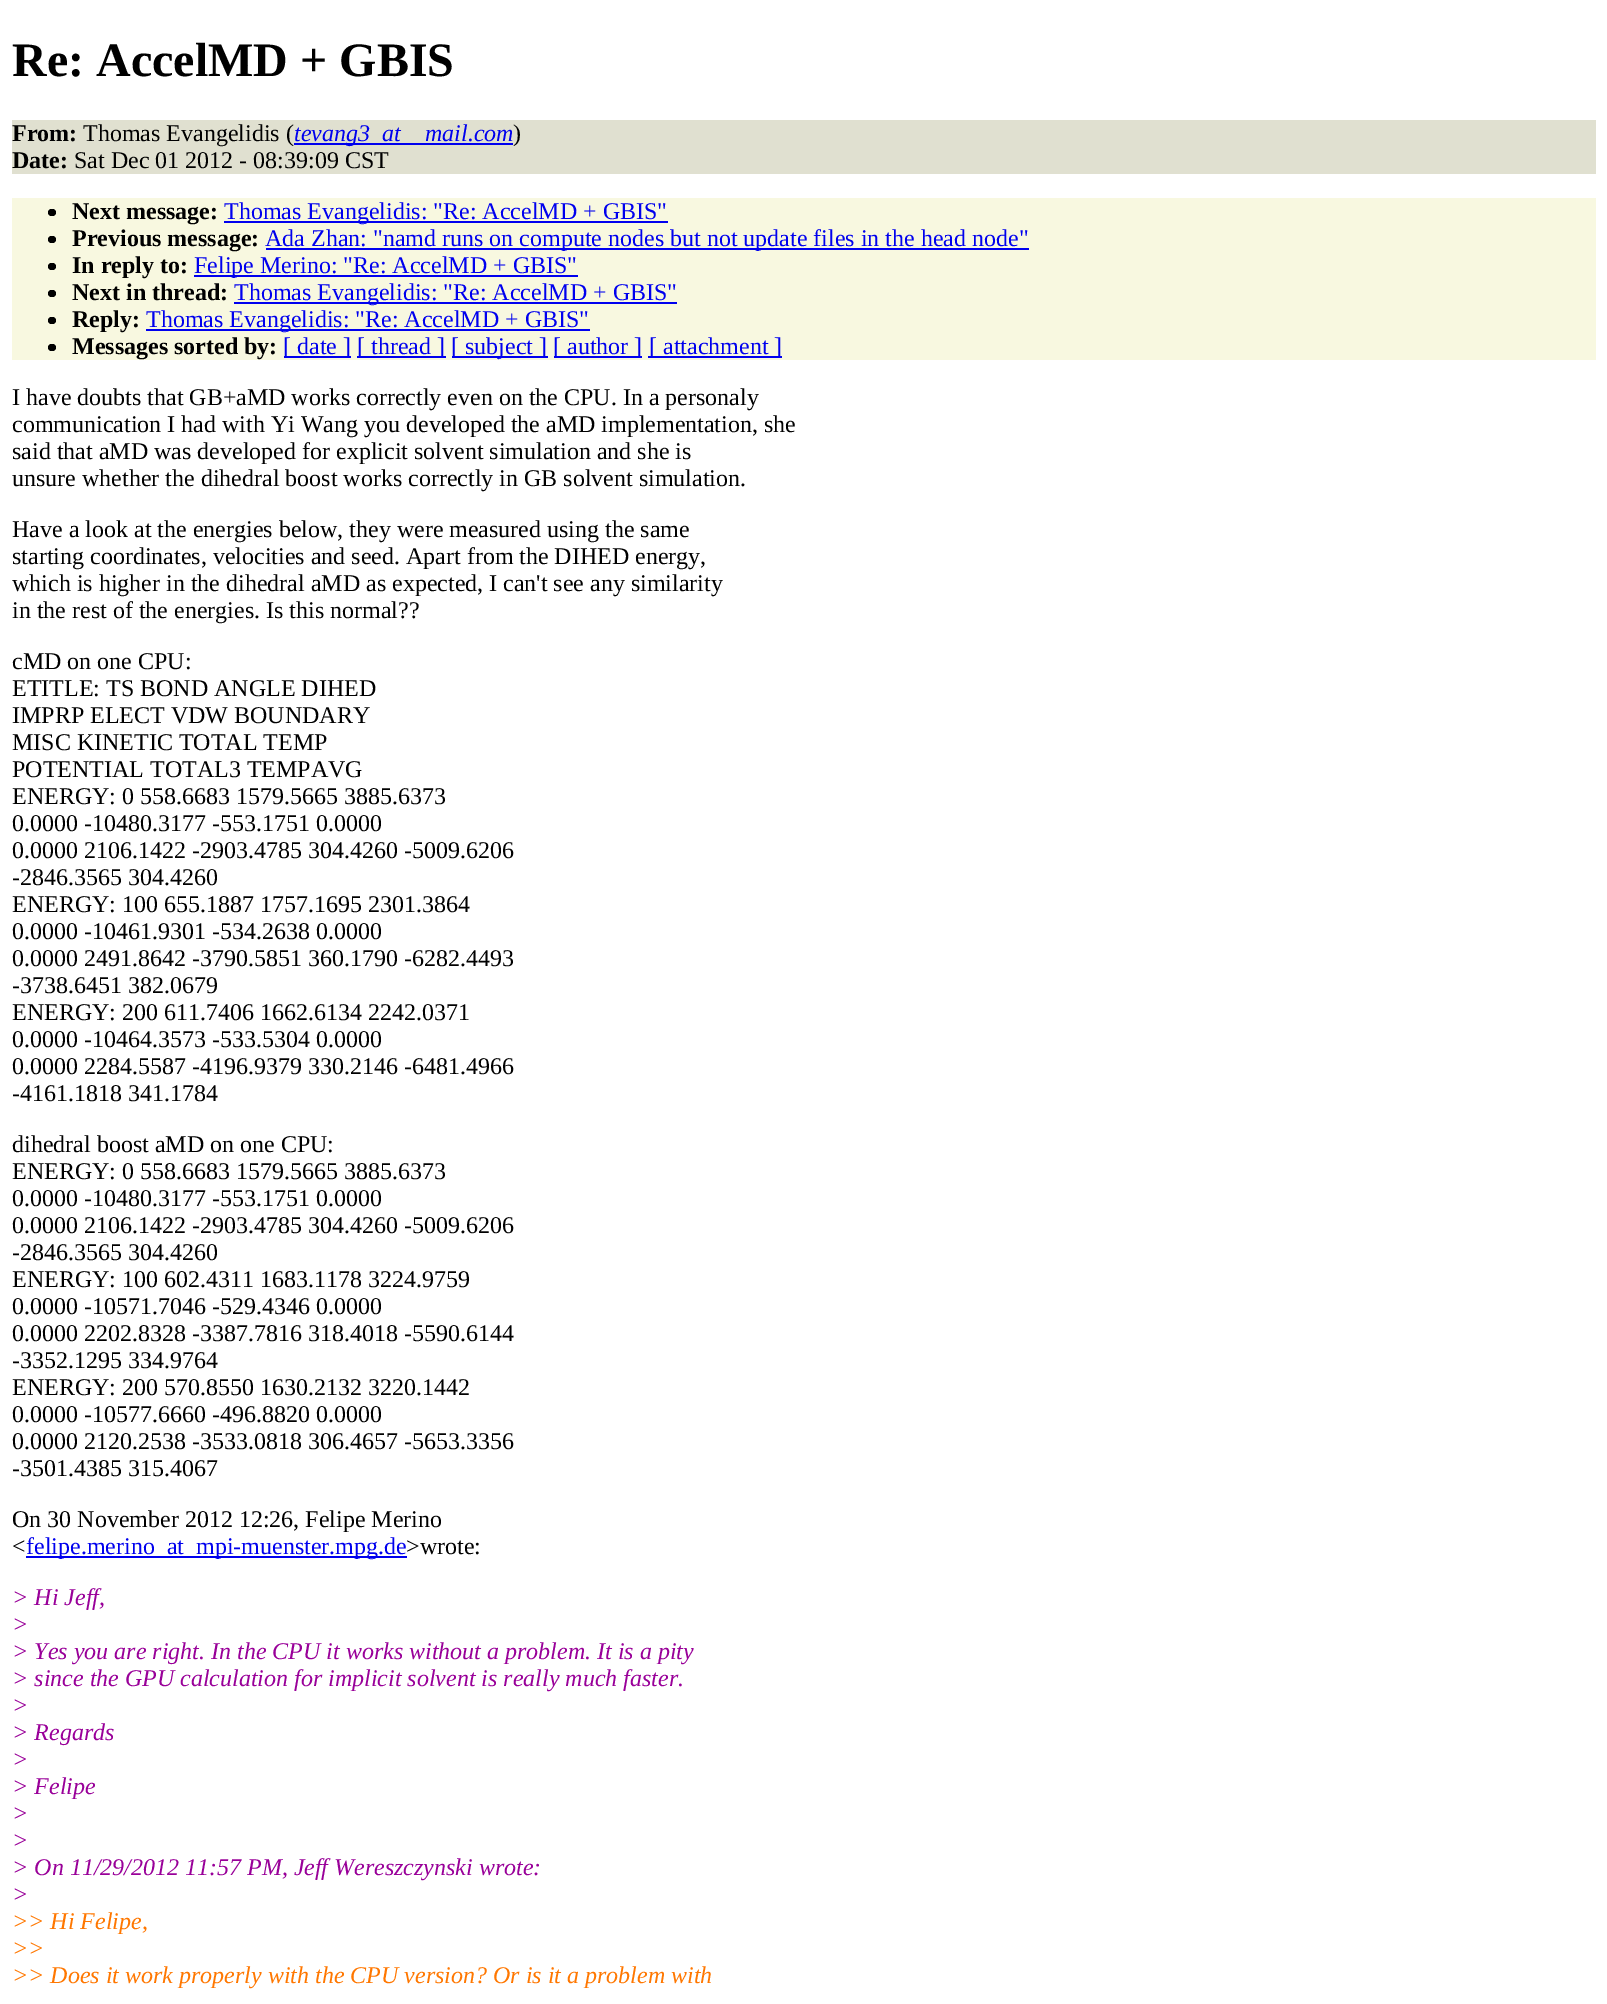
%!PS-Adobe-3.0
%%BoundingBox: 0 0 1607 2004
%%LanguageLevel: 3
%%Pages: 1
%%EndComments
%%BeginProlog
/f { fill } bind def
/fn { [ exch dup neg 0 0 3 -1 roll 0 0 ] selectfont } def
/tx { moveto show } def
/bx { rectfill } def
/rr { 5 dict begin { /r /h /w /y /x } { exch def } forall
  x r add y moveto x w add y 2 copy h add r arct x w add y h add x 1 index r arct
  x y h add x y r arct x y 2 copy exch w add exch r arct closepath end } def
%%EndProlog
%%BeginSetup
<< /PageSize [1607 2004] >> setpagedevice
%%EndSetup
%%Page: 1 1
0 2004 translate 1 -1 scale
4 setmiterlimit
1 setgray
0 0 1607 2004 bx
/LiberationSerif-Bold 48 fn
0 setgray
(Re: AccelMD + GBIS) 12 76 tx
0.878 0.878 0.816 setrgbcolor
12 120 1584 54 bx
/LiberationSerif-Bold 24 fn
0 setgray
(From:) 12 141 tx
/LiberationSerif-Regular 24 fn
(Thomas Evangelidis \() 83 141 tx
0 0 0.933 setrgbcolor
294 143 219 2 bx
/LiberationSerif-Italic 24 fn
(tevang3_at) 294 141 tx
(mail.com) 425 141 tx
/LiberationSerif-Regular 24 fn
0 setgray
(\)) 513 141 tx
/LiberationSerif-Bold 24 fn
(Date:) 12 168 tx
/LiberationSerif-Regular 24 fn
(Sat Dec 01 2012 - 08:39:09 CST) 74 168 tx
0.973 0.973 0.878 setrgbcolor
12 198 1584 162 bx
0 setgray
48 209 8 7 3.5 rr f
/LiberationSerif-Bold 24 fn
(Next message:) 72 219 tx
0 0 0.933 setrgbcolor
224 221 444 2 bx
/LiberationSerif-Regular 24 fn
(Thomas Evangelidis: "Re: AccelMD + GBIS") 224 219 tx
0 setgray
48 236 8 7 3.5 rr f
/LiberationSerif-Bold 24 fn
(Previous message:) 72 246 tx
0 0 0.933 setrgbcolor
266 248 763 2 bx
/LiberationSerif-Regular 24 fn
(Ada Zhan: "namd runs on compute nodes but not update files in the head node") 265 246 tx
0 setgray
48 263 8 7 3.5 rr f
/LiberationSerif-Bold 24 fn
(In reply to:) 72 273 tx
0 0 0.933 setrgbcolor
194 275 384 2 bx
/LiberationSerif-Regular 24 fn
(Felipe Merino: "Re: AccelMD + GBIS") 194 273 tx
0 setgray
48 290 8 7 3.5 rr f
/LiberationSerif-Bold 24 fn
(Next in thread:) 72 300 tx
0 0 0.933 setrgbcolor
234 302 443 2 bx
/LiberationSerif-Regular 24 fn
(Thomas Evangelidis: "Re: AccelMD + GBIS") 234 300 tx
0 setgray
48 317 8 7 3.5 rr f
/LiberationSerif-Bold 24 fn
(Reply:) 72 327 tx
0 0 0.933 setrgbcolor
146 329 444 2 bx
/LiberationSerif-Regular 24 fn
(Thomas Evangelidis: "Re: AccelMD + GBIS") 146 327 tx
0 setgray
48 344 8 7 3.5 rr f
/LiberationSerif-Bold 24 fn
(Messages sorted by:) 72 354 tx
0 0 0.933 setrgbcolor
284 356 67 2 bx
/LiberationSerif-Regular 24 fn
([ date ]) 283 354 tx
357 356 89 2 bx
([ thread ]) 357 354 tx
452 356 96 2 bx
([ subject ]) 451 354 tx
554 356 88 2 bx
([ author ]) 553 354 tx
648 356 134 2 bx
([ attachment ]) 649 354 tx
0 setgray
(I have doubts that GB+aMD works correctly even on the CPU. In a personaly) 12 405 tx
(communication I had with Yi Wang you developed the aMD implementation, she) 12 432 tx
(said that aMD was developed for explicit solvent simulation and she is) 12 459 tx
(unsure whether the dihedral boost works correctly in GB solvent simulation.) 12 486 tx
(Have a look at the energies below, they were measured using the same) 12 537 tx
(starting coordinates, velocities and seed. Apart from the DIHED energy,) 12 564 tx
(which is higher in the dihedral aMD as expected, I can't see any similarity) 12 591 tx
(in the rest of the energies. Is this normal??) 12 618 tx
(cMD on one CPU:) 12 669 tx
(ETITLE: TS BOND ANGLE DIHED) 12 696 tx
(IMPRP ELECT VDW BOUNDARY) 12 723 tx
(MISC KINETIC TOTAL TEMP) 12 750 tx
(POTENTIAL TOTAL3 TEMPAVG) 12 777 tx
(ENERGY: 0 558.6683 1579.5665 3885.6373) 12 804 tx
(0.0000 -10480.3177 -553.1751 0.0000) 12 831 tx
(0.0000 2106.1422 -2903.4785 304.4260 -5009.6206) 12 858 tx
(-2846.3565 304.4260) 12 885 tx
(ENERGY: 100 655.1887 1757.1695 2301.3864) 12 912 tx
(0.0000 -10461.9301 -534.2638 0.0000) 12 939 tx
(0.0000 2491.8642 -3790.5851 360.1790 -6282.4493) 12 966 tx
(-3738.6451 382.0679) 12 993 tx
(ENERGY: 200 611.7406 1662.6134 2242.0371) 12 1020 tx
(0.0000 -10464.3573 -533.5304 0.0000) 12 1047 tx
(0.0000 2284.5587 -4196.9379 330.2146 -6481.4966) 12 1074 tx
(-4161.1818 341.1784) 12 1101 tx
(dihedral boost aMD on one CPU:) 12 1152 tx
(ENERGY: 0 558.6683 1579.5665 3885.6373) 12 1179 tx
(0.0000 -10480.3177 -553.1751 0.0000) 12 1206 tx
(0.0000 2106.1422 -2903.4785 304.4260 -5009.6206) 12 1233 tx
(-2846.3565 304.4260) 12 1260 tx
(ENERGY: 100 602.4311 1683.1178 3224.9759) 12 1287 tx
(0.0000 -10571.7046 -529.4346 0.0000) 12 1314 tx
(0.0000 2202.8328 -3387.7816 318.4018 -5590.6144) 12 1341 tx
(-3352.1295 334.9764) 12 1368 tx
(ENERGY: 200 570.8550 1630.2132 3220.1442) 12 1395 tx
(0.0000 -10577.6660 -496.8820 0.0000) 12 1422 tx
(0.0000 2120.2538 -3533.0818 306.4657 -5653.3356) 12 1449 tx
(-3501.4385 315.4067) 12 1476 tx
(On 30 November 2012 12:26, Felipe Merino) 12 1527 tx
(<) 12 1554 tx
0 0 0.933 setrgbcolor
26 1556 381 2 bx
(felipe.merino_at_mpi-muenster.mpg.de) 26 1554 tx
0 setgray
(>wrote:) 406 1554 tx
/LiberationSerif-Italic 24 fn
0.6 0 0.6 setrgbcolor
(> Hi Jeff,) 12 1605 tx
(>) 12 1632 tx
(> Yes you are right. In the CPU it works without a problem. It is a pity) 12 1659 tx
(> since the GPU calculation for implicit solvent is really much faster.) 12 1686 tx
(>) 12 1713 tx
(> Regards) 12 1740 tx
(>) 12 1767 tx
(> Felipe) 12 1794 tx
(>) 12 1821 tx
(>) 12 1848 tx
(> On 11/29/2012 11:57 PM, Jeff Wereszczynski wrote:) 12 1875 tx
(>) 12 1902 tx
1 0.467 0 setrgbcolor
(>> Hi Felipe,) 12 1929 tx
(>>) 12 1956 tx
(>> Does it work properly with the CPU version? Or is it a problem with) 12 1983 tx
showpage
%%EOF
